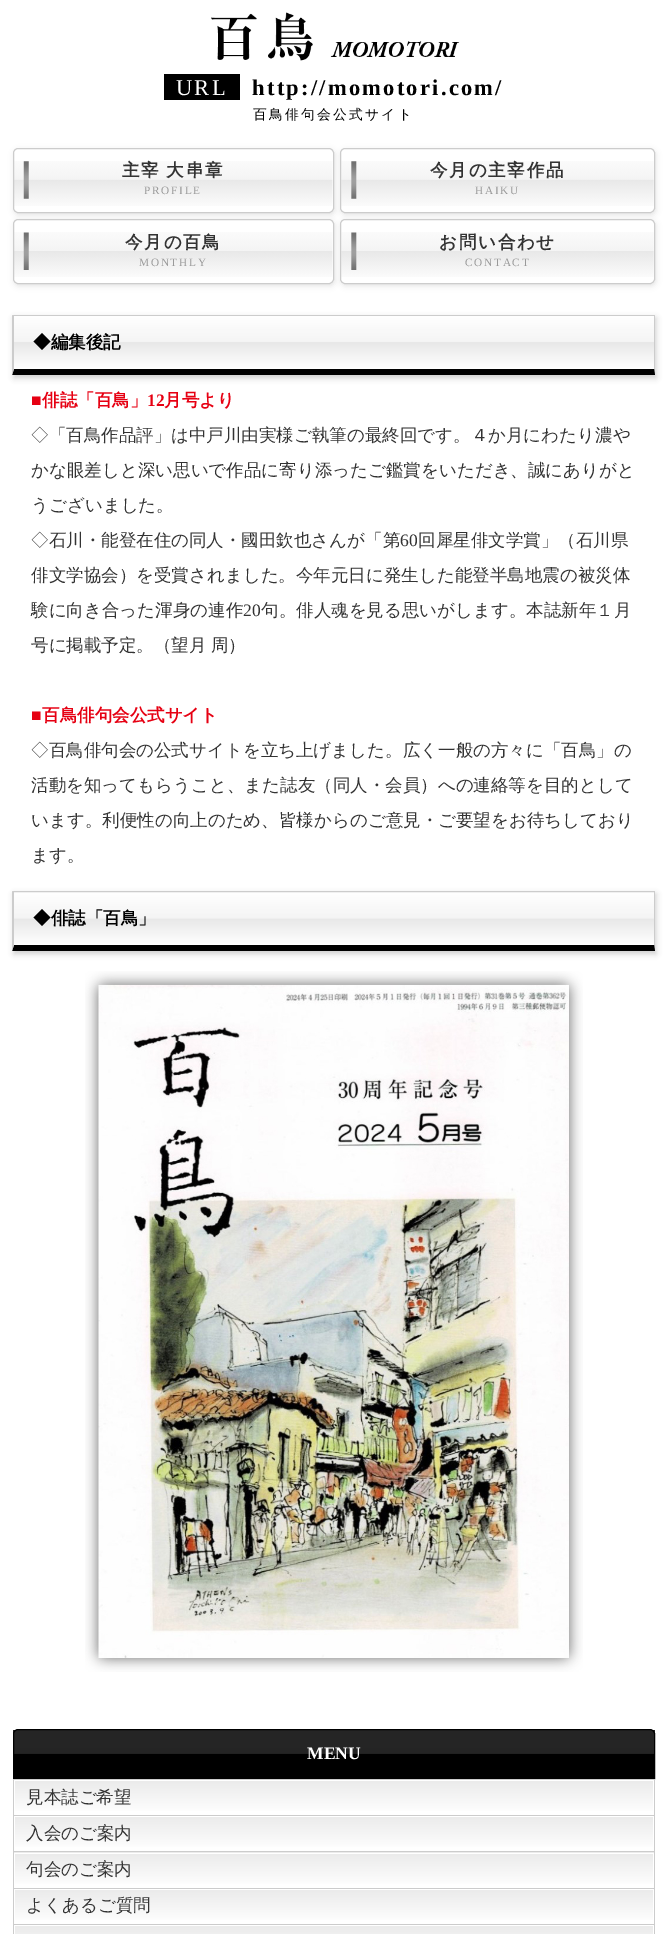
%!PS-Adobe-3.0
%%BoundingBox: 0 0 667 1934
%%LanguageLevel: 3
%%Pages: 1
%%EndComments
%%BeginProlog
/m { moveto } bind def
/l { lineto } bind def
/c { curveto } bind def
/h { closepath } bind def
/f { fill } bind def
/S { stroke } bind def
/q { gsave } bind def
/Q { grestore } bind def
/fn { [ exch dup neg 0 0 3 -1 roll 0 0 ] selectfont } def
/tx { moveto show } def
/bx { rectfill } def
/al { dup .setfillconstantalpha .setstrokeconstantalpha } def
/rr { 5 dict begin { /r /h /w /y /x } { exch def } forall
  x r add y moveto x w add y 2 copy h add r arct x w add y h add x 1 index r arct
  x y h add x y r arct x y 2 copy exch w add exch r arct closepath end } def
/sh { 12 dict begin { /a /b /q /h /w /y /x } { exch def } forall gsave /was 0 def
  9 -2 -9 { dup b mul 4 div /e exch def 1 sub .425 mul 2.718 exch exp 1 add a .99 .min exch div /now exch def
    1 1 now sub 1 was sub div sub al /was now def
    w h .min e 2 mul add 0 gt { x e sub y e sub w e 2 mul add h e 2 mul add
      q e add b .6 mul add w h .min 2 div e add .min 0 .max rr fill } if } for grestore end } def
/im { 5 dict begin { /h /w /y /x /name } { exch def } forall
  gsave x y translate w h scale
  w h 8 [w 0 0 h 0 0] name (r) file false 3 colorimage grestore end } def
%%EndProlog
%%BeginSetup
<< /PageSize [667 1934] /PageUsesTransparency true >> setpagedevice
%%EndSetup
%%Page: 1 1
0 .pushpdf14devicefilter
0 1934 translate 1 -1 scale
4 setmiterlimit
1 setgray
0 0 667 1934 bx
(image0.raw) 211 12 249 49 im
0 setgray
164 74 76 26 bx
/LiberationSerif-Regular 22.5 fn
1 setgray
176 95 m 2.25 0 (URL) ashow
/LiberationSerif-Bold 22.5 fn
0 setgray
252 95 m 2.25 0 (http://momotori.com/) ashow
/WenQuanYiZenHei-Medium 13.75 fn
253 119 m 2.25 0 (百鳥俳句会公式サイト) ashow
0.886 setgray
14 150 321 65 5 3 1 sh
1 setgray
13 148 321 65 5 rr f
(image1.raw) 14 161 319 45 im
0.8 setgray
13.5 148.5 320 64 4.5 rr S
/WenQuanYiZenHei-Bold 17.5 fn
0.2 setgray
122 176 m -1 0 32 1.75 0 (主宰 大串章) awidthshow
/LiberationSerif-Regular 11.25 fn
0.6 setgray
144 194 m 1.75 0 (PROFILE) ashow
0.886 setgray
341 150 315 65 5 3 1 sh
1 setgray
340 148 315 65 5 rr f
(image2.raw) 341 161 313 45 im
0.8 setgray
340.5 148.5 314 64 4.5 rr S
/WenQuanYiZenHei-Bold 17.5 fn
0.2 setgray
430 176 m 1.75 0 (今月の主宰作品) ashow
/LiberationSerif-Regular 11.25 fn
0.6 setgray
475 194 m 1.75 0 (HAIKU) ashow
0.886 setgray
14 221 321 65 5 3 1 sh
1 setgray
13 219 321 65 5 rr f
(image3.raw) 14 232 319 45 im
0.8 setgray
13.5 219.5 320 64 4.5 rr S
/WenQuanYiZenHei-Bold 17.5 fn
0.2 setgray
125 248 m 1.75 0 (今月の百鳥) ashow
/LiberationSerif-Regular 11.25 fn
0.6 setgray
139 266 m 1.75 0 (MONTHLY) ashow
0.886 setgray
341 221 315 65 5 3 1 sh
1 setgray
340 219 315 65 5 rr f
(image4.raw) 341 232 313 45 im
0.8 setgray
340.5 219.5 314 64 4.5 rr S
/WenQuanYiZenHei-Bold 17.5 fn
0.2 setgray
439 248 m 1.75 0 (お問い合わせ) ashow
/LiberationSerif-Regular 11.25 fn
0.6 setgray
465 266 m 1.75 0 (CONTACT) ashow
0.8 setgray
14 318 642 60 0 3 1 sh
q 14 316 m 654 316 l 654 369 l 14 369 l h clip newpath
<< /ShadingType 2 /ColorSpace /DeviceRGB /Coords [334 316 334 369] /Extend [true true] /Function << /FunctionType 3 /Domain [0 1] /Functions [<< /FunctionType 2 /Domain [0 1] /C0 [1 1 1] /C1 [0.957 0.957 0.957] /N 1 >> << /FunctionType 2 /Domain [0 1] /C0 [0.957 0.957 0.957] /C1 [0.91 0.91 0.91] /N 1 >> << /FunctionType 2 /Domain [0 1] /C0 [0.91 0.91 0.91] /C1 [1 1 1] /N 1 >>] /Bounds [0.49 0.5] /Encode [0 1 0 1 0 1] >> >> shfill Q
13 315 642 1 bx
655 315 m 655 375 l 654 369 l 654 316 l h f
0 setgray
655 375 m 12 375 l 14 369 l 654 369 l h f
0.8 setgray
12 375 m 12 315 l 14 316 l 14 369 l h f
/WenQuanYiZenHei-Bold 17.5 fn
0 setgray
(◆編集後記) 33 348 tx
/LiberationSerif-Bold 17.5 fn
0.902 0 0.071 setrgbcolor
(■) 31 406 tx
/WenQuanYiZenHei-Bold 17.5 fn
(俳誌「百鳥」) 42 406 tx
/LiberationSerif-Bold 17.5 fn
(12) 147 406 tx
/WenQuanYiZenHei-Bold 17.5 fn
(月号より) 164 406 tx
/WenQuanYiZenHei-Medium 17.5 fn
0.2 setgray
(◇「百鳥作品評」は中戸川由実様ご執筆の最終回です。４か月にわたり濃や) 31 441 tx
(かな眼差しと深い思いで作品に寄り添ったご鑑賞をいただき、誠にありがと) 31 476 tx
(うございました。) 31 511 tx
(◇石川・能登在住の同人・國田欽也さんが「第) 31 546 tx
/LiberationSerif-Regular 17.5 fn
(60) 400 546 tx
/WenQuanYiZenHei-Medium 17.5 fn
(回犀星俳文学賞」（石川県) 418 546 tx
(俳文学協会）を受賞されました。今年元日に発生した能登半島地震の被災体) 31 581 tx
(験に向き合った渾身の連作) 31 616 tx
/LiberationSerif-Regular 17.5 fn
(20) 243 616 tx
/WenQuanYiZenHei-Medium 17.5 fn
(句。俳人魂を見る思いがします。本誌新年１月) 261 616 tx
31 651 m -1 0 32 (号に掲載予定。（望月 周）) widthshow
/LiberationSerif-Bold 17.5 fn
0.902 0 0.071 setrgbcolor
(■) 31 721 tx
/WenQuanYiZenHei-Bold 17.5 fn
(百鳥俳句会公式サイト) 42 721 tx
/WenQuanYiZenHei-Medium 17.5 fn
0.2 setgray
(◇百鳥俳句会の公式サイトを立ち上げました。広く一般の方々に「百鳥」の) 31 756 tx
(活動を知ってもらうこと、また誌友（同人・会員）への連絡等を目的として) 31 791 tx
(います。利便性の向上のため、皆様からのご意見・ご要望をお待ちしており) 31 826 tx
(ます。) 31 861 tx
0.8 setgray
14 894 642 60 0 3 1 sh
q 14 893 m 654 893 l 654 945 l 14 945 l h clip newpath
<< /ShadingType 2 /ColorSpace /DeviceRGB /Coords [334 893 334 945] /Extend [true true] /Function << /FunctionType 3 /Domain [0 1] /Functions [<< /FunctionType 2 /Domain [0 1] /C0 [1 1 1] /C1 [0.957 0.957 0.957] /N 1 >> << /FunctionType 2 /Domain [0 1] /C0 [0.957 0.957 0.957] /C1 [0.91 0.91 0.91] /N 1 >> << /FunctionType 2 /Domain [0 1] /C0 [0.91 0.91 0.91] /C1 [1 1 1] /N 1 >>] /Bounds [0.49 0.5] /Encode [0 1 0 1 0 1] >> >> shfill Q
13 891 642 1 bx
655 891 m 655 951 l 654 945 l 654 892 l h f
0 setgray
655 951 m 12 951 l 14 945 l 654 945 l h f
0.8 setgray
12 951 m 12 891 l 14 892 l 14 945 l h f
/WenQuanYiZenHei-Bold 17.5 fn
0 setgray
(◆俳誌「百鳥」) 33 924 tx
(image5.raw) 85 971 498 701 im
q
18 1729 m 650 1729 l 653 1729 655 1731 655 1734 c 655 1779 l 13 1779 l 13 1734 l 13 1731 15 1729 18 1729 c h clip newpath
q 13 1730 m 655 1730 l 655 1778 l 13 1778 l h clip newpath
<< /ShadingType 2 /ColorSpace /DeviceRGB /Coords [334 1730 334 1778] /Extend [true true] /Function << /FunctionType 3 /Domain [0 1] /Functions [<< /FunctionType 2 /Domain [0 1] /C0 [0.149 0.149 0.149] /C1 [0.141 0.141 0.141] /N 1 >> << /FunctionType 2 /Domain [0 1] /C0 [0.141 0.141 0.141] /C1 [0 0 0] /N 1 >> << /FunctionType 2 /Domain [0 1] /C0 [0 0 0] /C1 [0 0 0] /N 1 >>] /Bounds [0.49 0.5] /Encode [0 1 0 1 0 1] >> >> shfill Q
Q
18 1729.5 m 650 1729.5 l 652.5 1729.5 654.5 1731.5 654.5 1734 c 654.5 1778.5 l 13.5 1778.5 l 13.5 1734 l 13.5 1731.5 15.5 1729.5 18 1729.5 c h S
/LiberationSerif-Bold 17.5 fn
1 setgray
(MENU) 307 1759 tx
0.8 setgray
13 1779 642 1 bx
654 1779 1 155 bx
13 1779 1 155 bx
q 15 1781 m 653 1781 l 653 1811 l 15 1811 l h clip newpath
<< /ShadingType 2 /ColorSpace /DeviceRGB /Coords [334 1780 334 1815] /Extend [true true] /Function << /FunctionType 2 /Domain [0 1] /C0 [0.918 0.918 0.918] /C1 [1 1 1] /N 1 >> >> shfill Q
14 1815 640 1 bx
/WenQuanYiZenHei-Medium 17.5 fn
0.2 setgray
(見本誌ご希望) 26 1803 tx
q 15 1817 m 653 1817 l 653 1847 l 15 1847 l h clip newpath
<< /ShadingType 2 /ColorSpace /DeviceRGB /Coords [334 1816 334 1851] /Extend [true true] /Function << /FunctionType 2 /Domain [0 1] /C0 [0.918 0.918 0.918] /C1 [1 1 1] /N 1 >> >> shfill Q
q 14 1852 m 654 1852 l 654 1853 l 14 1853 l h clip newpath
<< /ShadingType 2 /ColorSpace /DeviceRGB /Coords [334 1851 334 1886] /Extend [true true] /Function << /FunctionType 2 /Domain [0 1] /C0 [0.918 0.918 0.918] /C1 [1 1 1] /N 1 >> >> shfill Q
0.8 setgray
14 1851 640 1 bx
0.2 setgray
(入会のご案内) 26 1839 tx
q 15 1854 m 653 1854 l 653 1884 l 15 1884 l h clip newpath
<< /ShadingType 2 /ColorSpace /DeviceRGB /Coords [334 1853 334 1888] /Extend [true true] /Function << /FunctionType 2 /Domain [0 1] /C0 [0.918 0.918 0.918] /C1 [1 1 1] /N 1 >> >> shfill Q
0.8 setgray
14 1888 640 1 bx
0.2 setgray
(句会のご案内) 26 1875 tx
q 15 1890 m 653 1890 l 653 1920 l 15 1920 l h clip newpath
<< /ShadingType 2 /ColorSpace /DeviceRGB /Coords [334 1889 334 1924] /Extend [true true] /Function << /FunctionType 2 /Domain [0 1] /C0 [0.918 0.918 0.918] /C1 [1 1 1] /N 1 >> >> shfill Q
0.8 setgray
14 1924 640 1 bx
0.2 setgray
(よくあるご質問) 26 1911 tx
q 15 1926 m 653 1926 l 653 1934 l 15 1934 l h clip newpath
<< /ShadingType 2 /ColorSpace /DeviceRGB /Coords [334 1925 334 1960] /Extend [true true] /Function << /FunctionType 2 /Domain [0 1] /C0 [0.918 0.918 0.918] /C1 [1 1 1] /N 1 >> >> shfill Q
.poppdf14devicefilter showpage
%%EOF
